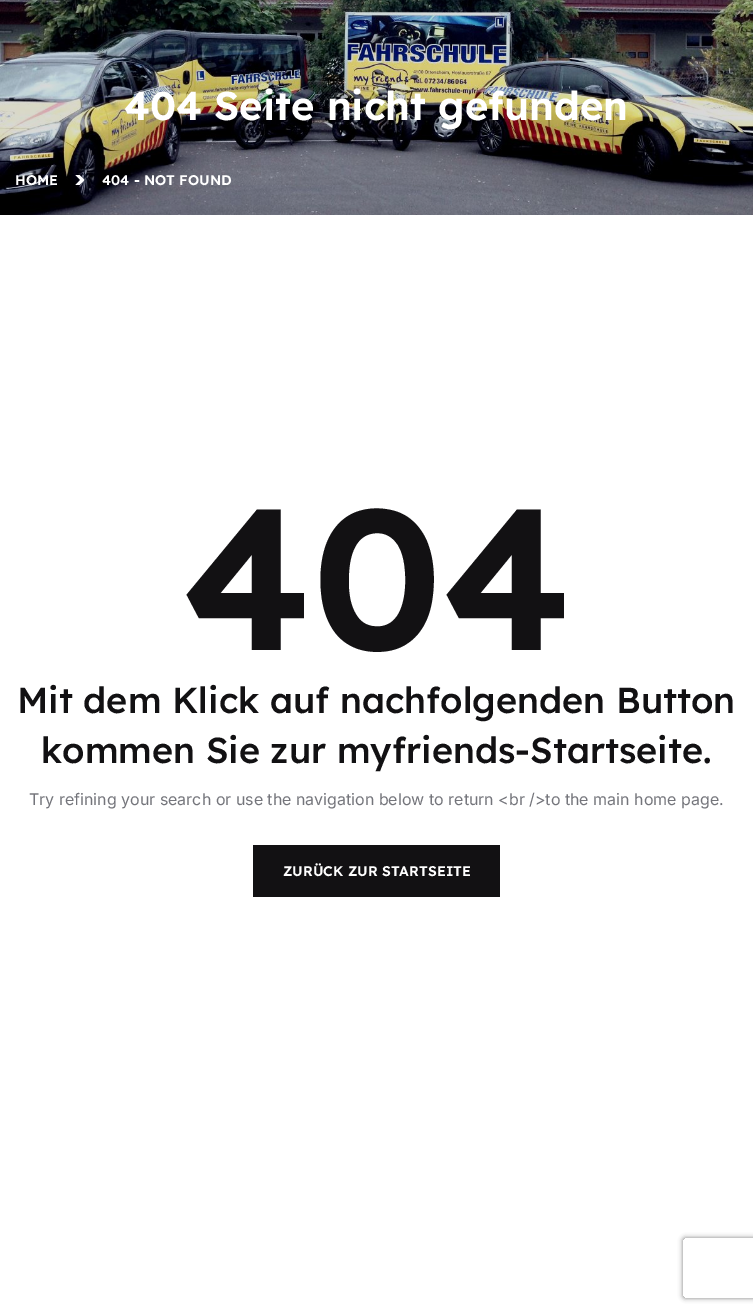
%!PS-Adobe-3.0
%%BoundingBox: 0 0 753 1312
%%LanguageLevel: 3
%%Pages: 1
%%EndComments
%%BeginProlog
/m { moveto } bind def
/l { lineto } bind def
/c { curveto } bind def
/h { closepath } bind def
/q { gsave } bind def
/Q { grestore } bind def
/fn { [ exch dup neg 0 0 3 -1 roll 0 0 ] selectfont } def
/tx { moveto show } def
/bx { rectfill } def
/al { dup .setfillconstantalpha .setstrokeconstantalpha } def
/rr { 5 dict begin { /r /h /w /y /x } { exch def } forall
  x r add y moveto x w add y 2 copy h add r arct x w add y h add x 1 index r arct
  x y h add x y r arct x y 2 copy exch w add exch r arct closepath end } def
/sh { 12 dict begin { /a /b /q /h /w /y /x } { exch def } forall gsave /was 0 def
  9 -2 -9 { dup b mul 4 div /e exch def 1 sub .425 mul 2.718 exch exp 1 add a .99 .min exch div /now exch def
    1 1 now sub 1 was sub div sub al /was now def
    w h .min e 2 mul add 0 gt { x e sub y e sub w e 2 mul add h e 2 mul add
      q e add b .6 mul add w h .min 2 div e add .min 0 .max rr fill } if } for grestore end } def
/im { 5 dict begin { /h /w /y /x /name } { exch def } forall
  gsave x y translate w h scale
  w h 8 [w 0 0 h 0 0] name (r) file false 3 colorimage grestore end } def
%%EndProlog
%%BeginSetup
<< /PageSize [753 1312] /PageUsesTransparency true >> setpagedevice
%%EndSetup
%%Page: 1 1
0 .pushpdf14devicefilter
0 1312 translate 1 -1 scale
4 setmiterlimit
1 setgray
0 0 753 1312 bx
(image0.raw) 0 0 753 215 im
/Lexend-SemiBold 40 fn
(404 Seite nicht gefunden) 124 120 tx
/Lexend-SemiBold 14 fn
(HOME) 15 185 tx
(image1.raw) 75 175 10 10 im
(404 - NOT FOUND) 102 185 tx
/Lexend-SemiBold 200 fn
0.071 0.067 0.075 setrgbcolor
(404) 182 650 tx
/Lexend-Medium 36 fn
(Mit dem Klick auf nachfolgenden Button) 17 713 tx
(kommen Sie zur myfriends-Startseite.) 41 763 tx
/Inter-Regular 16 fn
0.455 0.459 0.482 setrgbcolor
(Try refining your search or use the navigation below to return <br />to the main home page.) 29 805 tx
0.071 0.067 0.075 setrgbcolor
253 845 247 52 bx
/Lexend-SemiBold 14 fn
1 setgray
(ZURÜCK ZUR STARTSEITE) 283 876 tx
q
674 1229 m 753 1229 l 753 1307 l 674 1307 l h 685 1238 m 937 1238 l 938 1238 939 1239 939 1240 c 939 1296 l 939 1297 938 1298 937 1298 c 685 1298 l 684 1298 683 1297 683 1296 c 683 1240 l 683 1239 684 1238 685 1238 c h eoclip newpath
0.502 setgray
683 1238 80 60 2 2.5 1 sh
Q
.poppdf14devicefilter showpage
%%EOF
